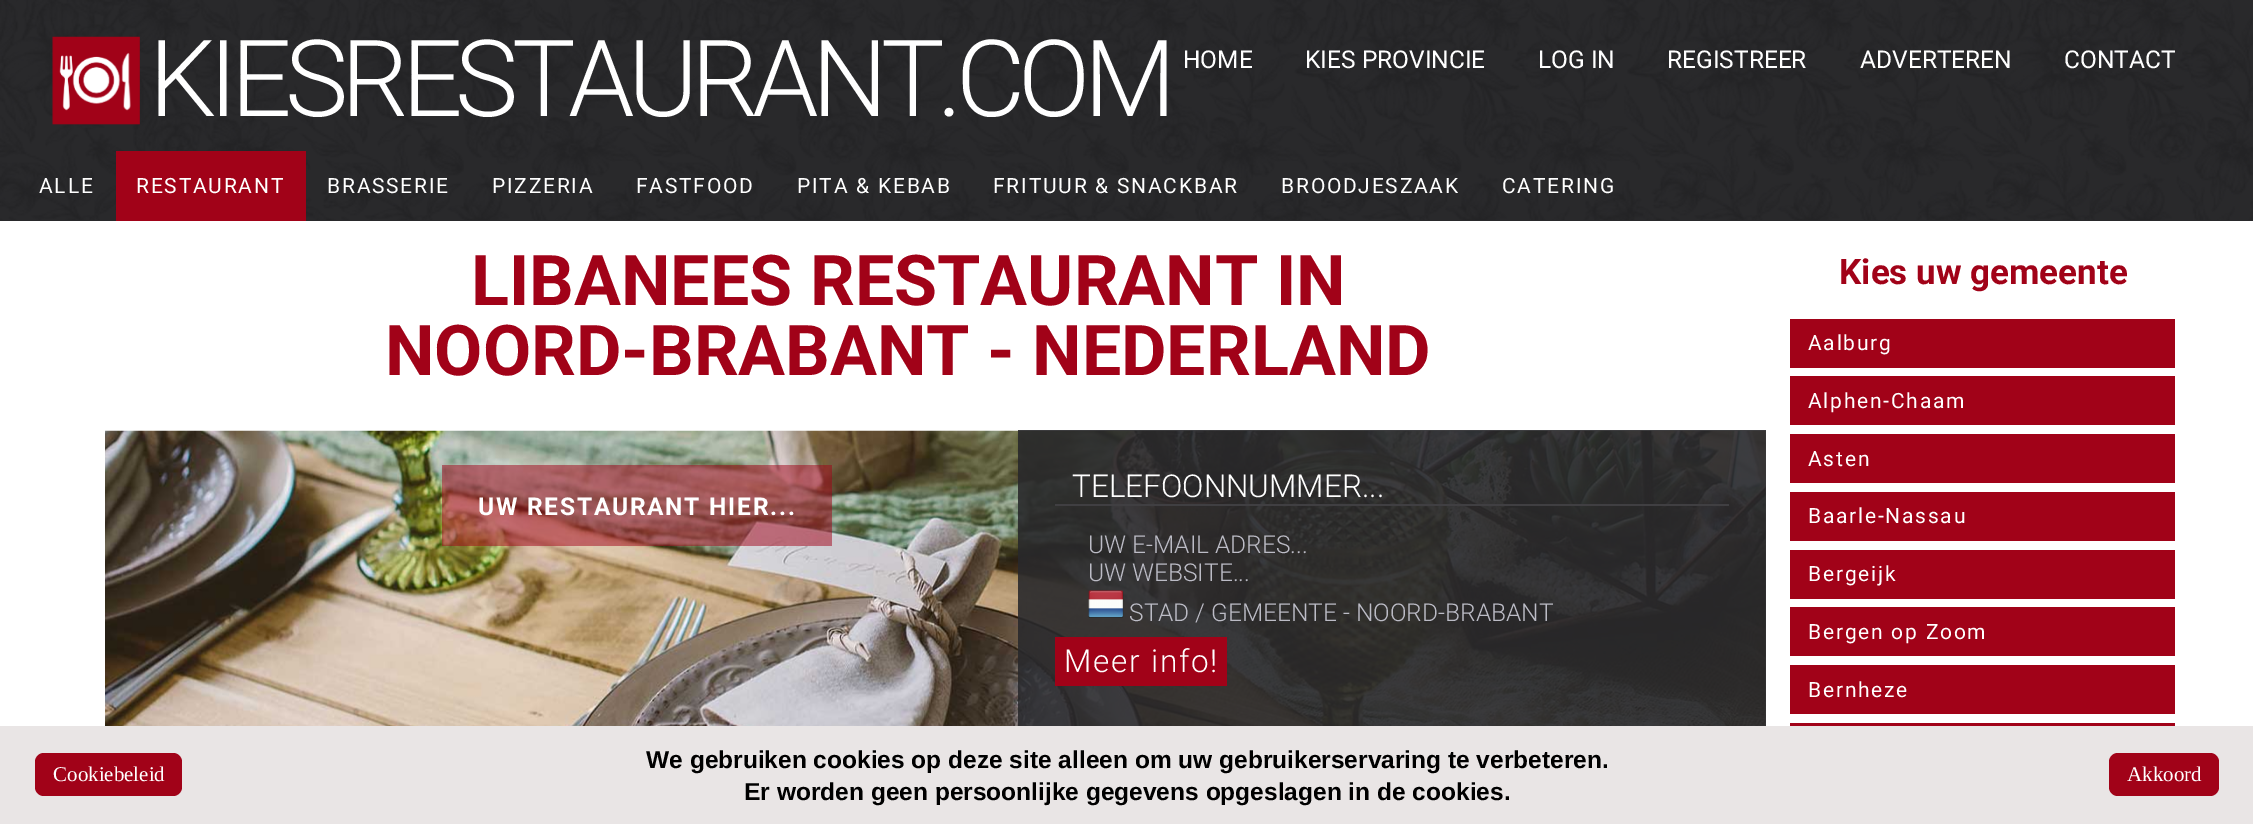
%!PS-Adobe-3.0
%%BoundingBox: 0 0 2253 824
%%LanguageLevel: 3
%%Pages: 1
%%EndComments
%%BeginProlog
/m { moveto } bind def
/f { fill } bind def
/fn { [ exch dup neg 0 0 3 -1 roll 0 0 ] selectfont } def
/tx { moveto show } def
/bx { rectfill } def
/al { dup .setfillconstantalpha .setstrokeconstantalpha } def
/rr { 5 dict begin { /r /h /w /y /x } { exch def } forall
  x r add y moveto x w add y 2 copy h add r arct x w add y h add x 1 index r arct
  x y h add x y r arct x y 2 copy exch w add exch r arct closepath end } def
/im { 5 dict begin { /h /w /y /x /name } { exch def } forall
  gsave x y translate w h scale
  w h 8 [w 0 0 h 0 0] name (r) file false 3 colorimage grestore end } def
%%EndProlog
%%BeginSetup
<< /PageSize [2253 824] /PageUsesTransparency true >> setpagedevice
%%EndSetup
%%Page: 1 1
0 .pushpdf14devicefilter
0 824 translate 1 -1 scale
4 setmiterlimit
1 setgray
0 0 2253 824 bx
0.161 0.161 0.169 setrgbcolor
0 220 2253 1 bx
(image0.raw) 0 0 2253 220 im
(image1.raw) 52 36 88 89 im
/Roboto-Light 106.75 fn
1 setgray
149 116 m -7 0 (KIESRESTAURANT.COM) ashow
/Roboto-Regular 24.5 fn
(HOME) 1183 68 tx
(KIES PROVINCIE) 1305 68 tx
(LOG IN) 1538 68 tx
(REGISTREER) 1667 68 tx
(ADVERTEREN) 1860 68 tx
(CONTACT) 2064 68 tx
/Roboto-Regular 21 fn
39 193 m 1.75 0 (ALLE) ashow
0.631 0.008 0.094 setrgbcolor
116 151 190 70 bx
1 setgray
136 193 m 1.75 0 (RESTAURANT) ashow
327 193 m 1.75 0 (BRASSERIE) ashow
492 193 m 1.75 0 (PIZZERIA) ashow
636 193 m 1.75 0 (FASTFOOD) ashow
797 193 m 1.75 0 (PITA & KEBAB) ashow
993 193 m 1.75 0 (FRITUUR & SNACKBAR) ashow
1281 193 m 1.75 0 (BROODJESZAAK) ashow
1502 193 m 1.75 0 (CATERING) ashow
0.914 0.898 0.898 setrgbcolor
0 726 2253 98 bx
0.631 0.008 0.094 setrgbcolor
35 753 147 43 9 rr f
/LiberationSerif-Regular 21 fn
1 setgray
(Cookiebeleid) 53 781 tx
/LiberationSans-Bold 24.5 fn
0 setgray
(We gebruiken cookies op deze site alleen om uw gebruikerservaring te verbeteren.) 646 768 tx
(Er worden geen persoonlijke gegevens opgeslagen in de cookies.) 744 800 tx
0.631 0.008 0.094 setrgbcolor
2109 753 110 43 9 rr f
/LiberationSerif-Regular 21 fn
1 setgray
(Akkoord) 2127 781 tx
/Roboto-Bold 70 fn
0.631 0.008 0.094 setrgbcolor
(LIBANEES RESTAURANT IN) 471 305 tx
(NOORD-BRABANT - NEDERLAND) 385 375 tx
(image2.raw) 105 430 1661 296 im
0.89 al
0.157 0.157 0.169 setrgbcolor
1018 430 748 296 bx
0.5 al
0.631 0.008 0.094 setrgbcolor
442 465 390 81 bx
/Roboto-Bold 24.5 fn
1 al
1 setgray
478 515 m 1.75 0 (UW RESTAURANT HIER...) ashow
0.251 0.247 0.259 setrgbcolor
1055 504 674 2 bx
/Roboto-Light 31.5 fn
1 setgray
(TELEFOONNUMMER...) 1072 497 tx
/Roboto-Light 24.5 fn
0.737 0.737 0.776 setrgbcolor
(UW E-MAIL ADRES...) 1088 553 tx
(UW WEBSITE...) 1088 581 tx
(image3.raw) 1088 590 36 28 im
(STAD / GEMEENTE - NOORD-BRABANT) 1129 621 tx
0.631 0.008 0.094 setrgbcolor
1055 637 172 49 bx
/Roboto-Light 31.5 fn
1 setgray
1064 672 m 1.75 0 (Meer info!) ashow
/Roboto-Bold 35 fn
0.631 0.008 0.094 setrgbcolor
(Kies uw gemeente) 1839 284 tx
1790 319 385 49 bx
/Roboto-Regular 21 fn
1 setgray
1808 350 m 1.75 0 (Aalburg) ashow
0.631 0.008 0.094 setrgbcolor
1790 376 385 49 bx
1 setgray
1808 408 m 1.75 0 (Alphen-Chaam) ashow
0.631 0.008 0.094 setrgbcolor
1790 434 385 49 bx
1 setgray
1808 466 m 1.75 0 (Asten) ashow
0.631 0.008 0.094 setrgbcolor
1790 492 385 49 bx
1 setgray
1808 523 m 1.75 0 (Baarle-Nassau) ashow
0.631 0.008 0.094 setrgbcolor
1790 550 385 49 bx
1 setgray
1808 581 m 1.75 0 (Bergeijk) ashow
0.631 0.008 0.094 setrgbcolor
1790 607 385 49 bx
1 setgray
1808 639 m 1.75 0 (Bergen op Zoom) ashow
0.631 0.008 0.094 setrgbcolor
1790 665 385 49 bx
1 setgray
1808 697 m 1.75 0 (Bernheze) ashow
0.631 0.008 0.094 setrgbcolor
1790 723 385 3 bx
.poppdf14devicefilter showpage
%%EOF
